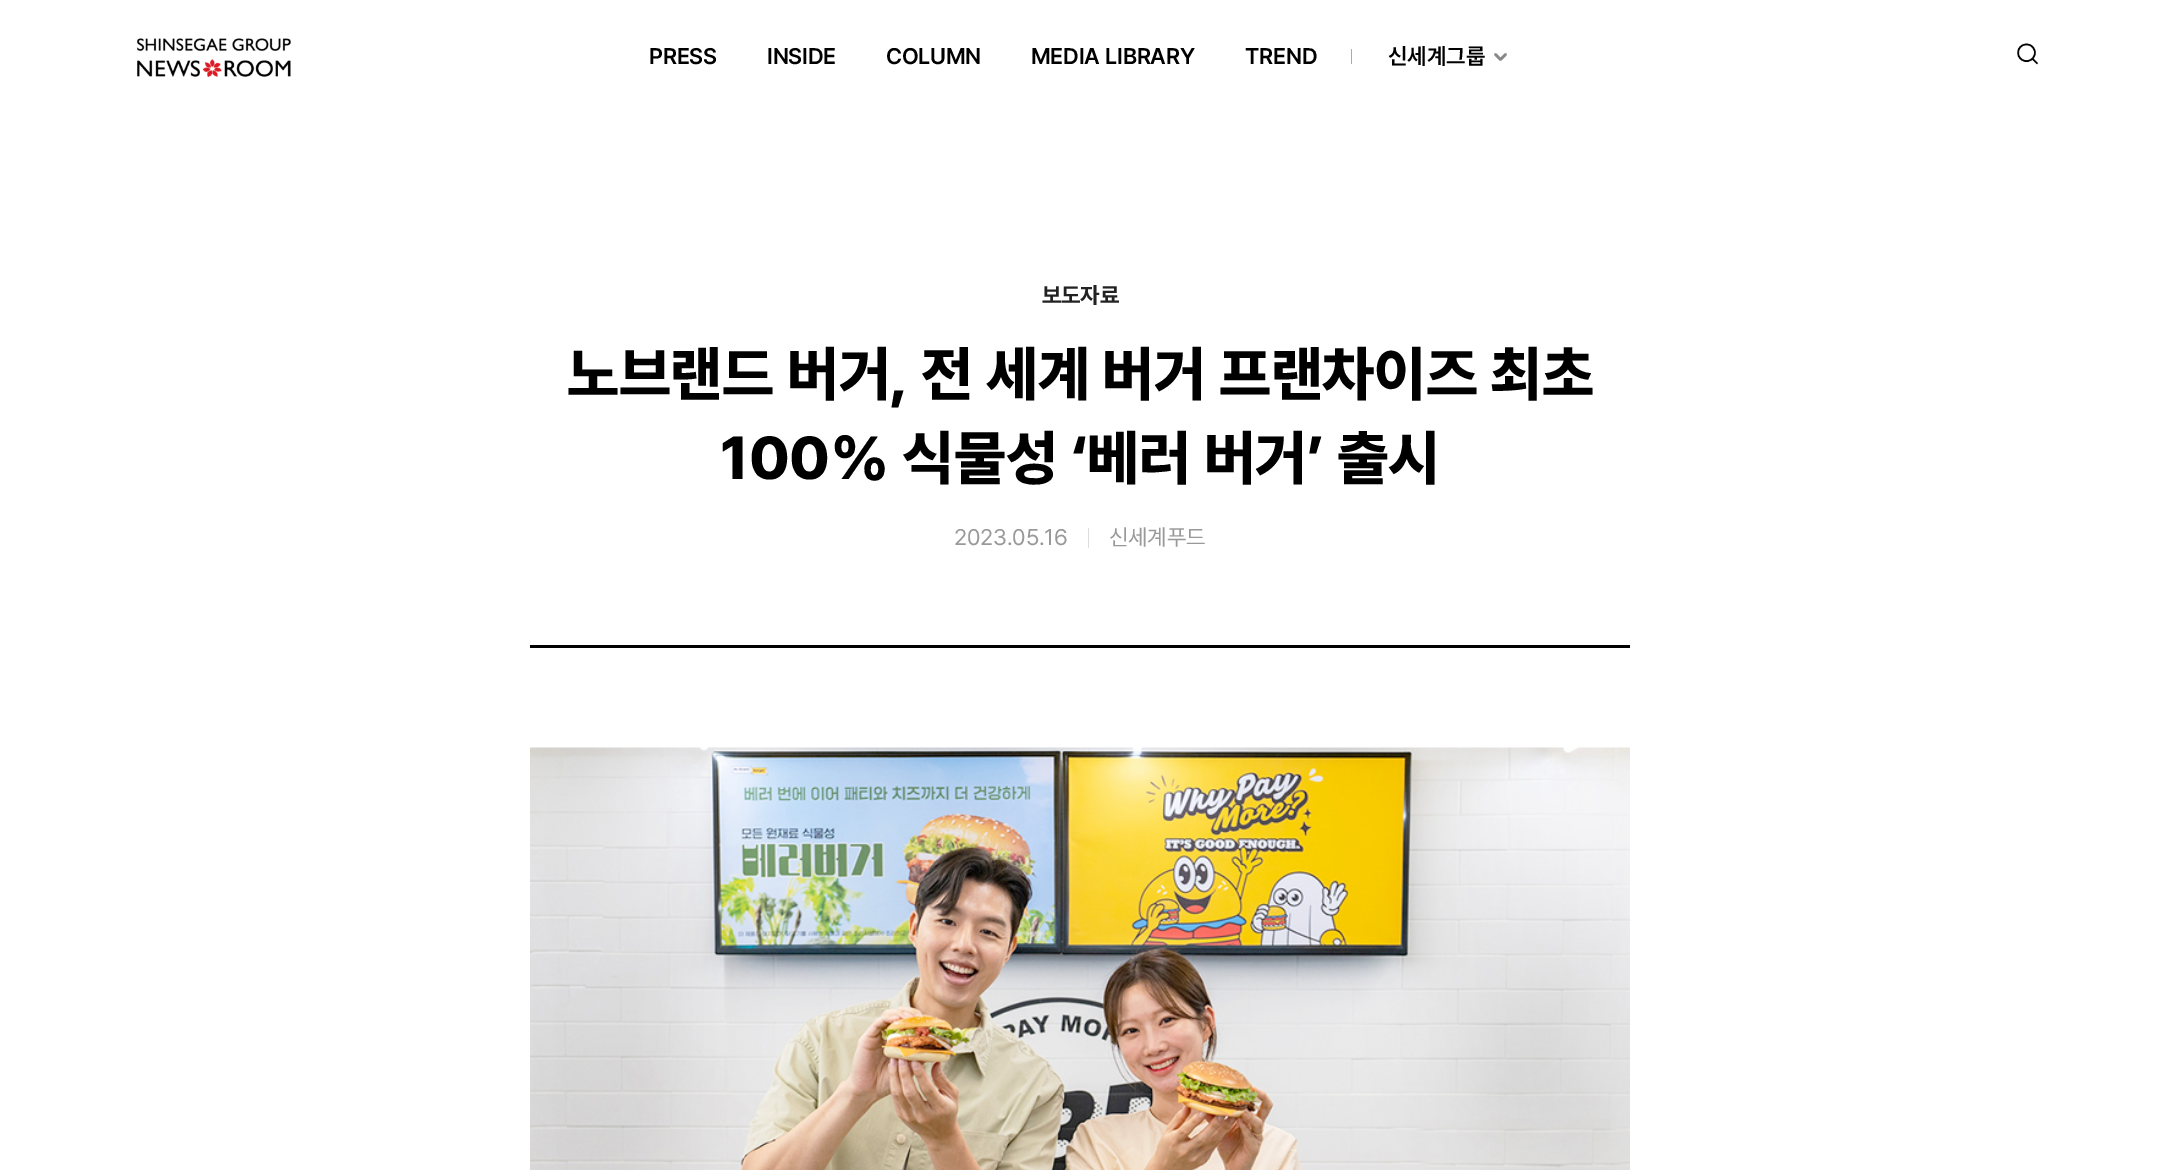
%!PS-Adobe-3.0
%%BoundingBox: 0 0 2160 1170
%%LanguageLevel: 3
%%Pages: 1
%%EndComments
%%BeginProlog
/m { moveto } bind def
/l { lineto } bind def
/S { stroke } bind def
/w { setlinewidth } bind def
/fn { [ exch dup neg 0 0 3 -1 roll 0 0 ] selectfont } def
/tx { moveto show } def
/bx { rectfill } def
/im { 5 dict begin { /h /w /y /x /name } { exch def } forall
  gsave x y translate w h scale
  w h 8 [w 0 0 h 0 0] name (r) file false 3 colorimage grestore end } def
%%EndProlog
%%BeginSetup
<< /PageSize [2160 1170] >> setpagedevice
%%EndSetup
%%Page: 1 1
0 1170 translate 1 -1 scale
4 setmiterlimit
1 setgray
0 0 2160 1170 bx
(image0.raw) 137 38 154 39 im
/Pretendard-SemiBold 22.5 fn
0 setgray
649 64 m -0.2 0 (PRESS) ashow
767 64 m -0.2 0 (INSIDE) ashow
886 64 m -0.2 0 (COLUMN) ashow
1031 64 m -0.2 0 (MEDIA LIBRARY) ashow
1245 64 m -0.2 0 (TREND) ashow
0.671 setgray
1351 49 1 15 bx
0 setgray
(신세계그룹) 1388 64 tx
0.533 setgray
2.5 w
1 setlinecap
1 setlinejoin
1495.5 54.5 m 1500.5 59.5 l 1505.5 54.5 l S
(image1.raw) 2017 43 21 22 im
/Pretendard-Bold 22.5 fn
0.133 setgray
1042 303 m -0.2 0 (보도자료) ashow
/Pretendard-ExtraBold 60 fn
0 setgray
567 395 m -0.2 0 (노브랜드 버거, 전 세계 버거 프랜차이즈 최초) ashow
720 479 m -0.2 0 (100% 식물성 ‘베러 버거’ 출시) ashow
/Pretendard-Regular 22.5 fn
0.6 setgray
954 545 m -0.2 0 (2023.05.16) ashow
0.867 setgray
1088 528 1 20 bx
0.6 setgray
1109 545 m -0.2 0 (신세계푸드) ashow
0 setgray
530 645 1100 3 bx
(image2.raw) 530 747 1100 423 im
showpage
%%EOF
